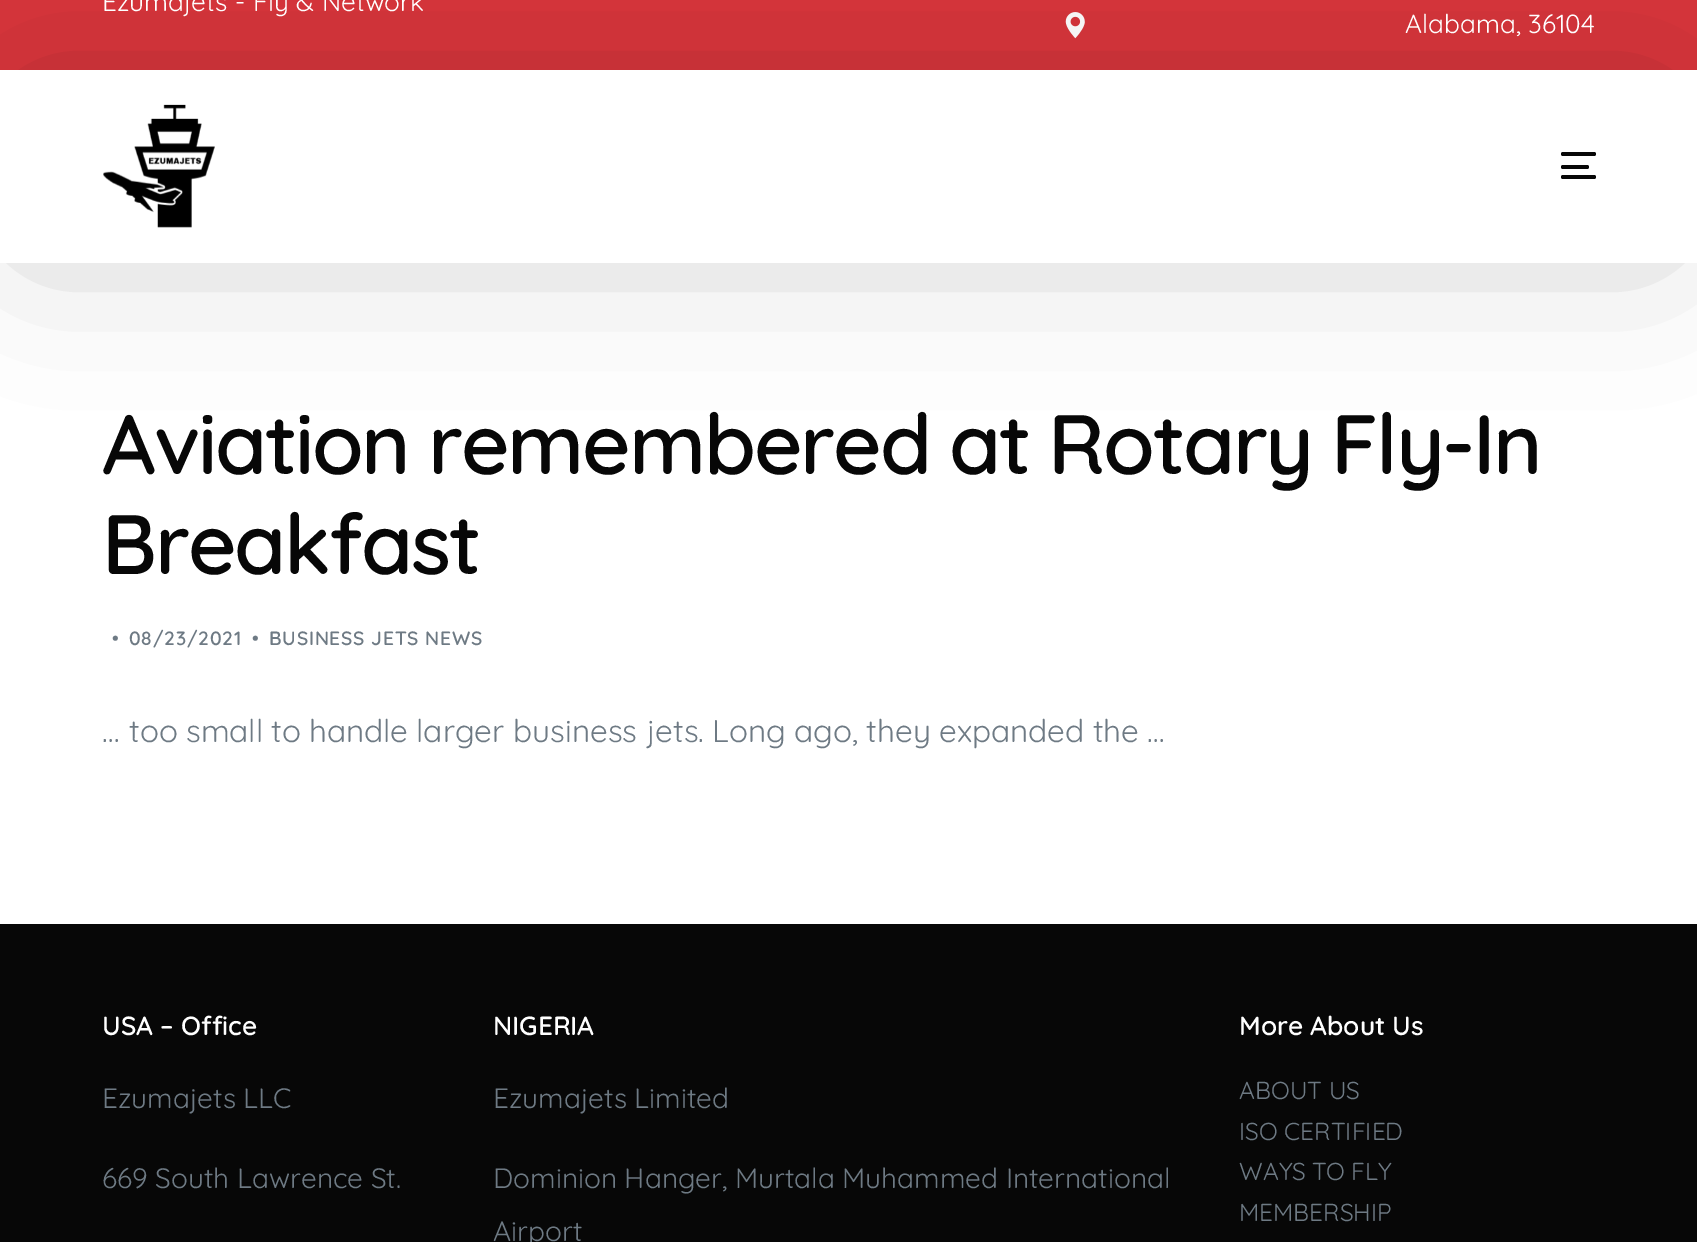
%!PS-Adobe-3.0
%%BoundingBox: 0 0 1697 1242
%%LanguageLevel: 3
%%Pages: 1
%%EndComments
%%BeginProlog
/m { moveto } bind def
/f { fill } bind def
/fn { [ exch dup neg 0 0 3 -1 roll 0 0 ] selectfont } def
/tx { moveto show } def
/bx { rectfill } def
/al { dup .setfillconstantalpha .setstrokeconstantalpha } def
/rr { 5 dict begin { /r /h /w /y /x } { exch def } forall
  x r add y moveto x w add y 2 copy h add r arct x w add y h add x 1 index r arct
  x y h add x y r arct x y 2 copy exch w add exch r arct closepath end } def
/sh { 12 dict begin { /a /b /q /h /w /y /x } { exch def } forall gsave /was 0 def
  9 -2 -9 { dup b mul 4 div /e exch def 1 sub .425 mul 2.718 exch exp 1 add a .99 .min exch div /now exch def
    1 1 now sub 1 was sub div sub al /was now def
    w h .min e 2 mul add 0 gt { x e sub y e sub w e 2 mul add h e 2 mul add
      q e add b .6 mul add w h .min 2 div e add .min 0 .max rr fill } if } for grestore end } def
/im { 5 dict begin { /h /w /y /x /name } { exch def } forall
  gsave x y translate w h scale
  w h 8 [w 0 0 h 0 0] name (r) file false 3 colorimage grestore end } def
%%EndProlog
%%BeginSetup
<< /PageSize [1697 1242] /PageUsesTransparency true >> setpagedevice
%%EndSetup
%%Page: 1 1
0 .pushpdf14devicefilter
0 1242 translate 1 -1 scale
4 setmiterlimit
1 setgray
0 0 1697 1242 bx
0.847 0.208 0.231 setrgbcolor
0 0 1697 70 bx
(image1.raw) 1065 12 20 27 im
0 setgray
32 110 1627 123 0 79 0.25 sh
1 setgray
0 70 1697 193 bx
(image0.raw) 103 104 112 124 im
0.027 setgray
1561 152 35 4 2 rr f
1561 165 28 4 2 rr f
1561 175 35 4 2 rr f
/Quicksand-Regular 26.25 fn
1 setgray
102 11 m 0.5 0 32 (Ezumajets - Fly & Network) widthshow
(Alabama, 36104) 1405 33 tx
/Quicksand-SemiBold 84 fn
0.027 setgray
102 474 m -2 0 32 -2.25 0 (Aviation remembered at Rotary Fly-In) awidthshow
102 574 m -2.25 0 (Breakfast) ashow
/Quicksand-SemiBold 19.25 fn
0.431 0.478 0.518 setrgbcolor
112 645 m 0.75 0 (•) ashow
129 645 m 0.75 0 (08/23/2021) ashow
252 645 m 0.75 0 (•) ashow
269 645 m 0.75 0 (BUSINESS JETS NEWS) ashow
/Quicksand-Regular 31.5 fn
(…) 102 742 tx
129 742 m -0.5 0 32 (too small to handle larger) widthshow
513 742 m 1 0 32 (business jets) widthshow
698 742 m -0.25 0 32 (. Long ago, they expanded the …) widthshow
0.027 setgray
0 924 1697 318 bx
/Quicksand-SemiBold 26.25 fn
1 setgray
(USA – Office) 102 1035 tx
/Quicksand-Regular 28 fn
0.431 0.478 0.518 setrgbcolor
(Ezumajets LLC) 102 1108 tx
(669 South Lawrence St.) 102 1188 tx
/Quicksand-SemiBold 26.25 fn
1 setgray
(NIGERIA) 493 1035 tx
/Quicksand-Regular 28 fn
0.431 0.478 0.518 setrgbcolor
(Ezumajets Limited) 493 1108 tx
(Dominion Hanger, Murtala Muhammed International) 493 1188 tx
(Airport) 493 1241 tx
/Quicksand-SemiBold 26.25 fn
1 setgray
(More About Us) 1239 1035 tx
/Quicksand-Regular 24.5 fn
0.431 0.478 0.518 setrgbcolor
(ABOUT US) 1239 1099 tx
(ISO CERTIFIED) 1239 1140 tx
1239 1180 m -1 0 32 (WAYS TO FLY) widthshow
(MEMBERSHIP) 1239 1221 tx
.poppdf14devicefilter showpage
%%EOF
